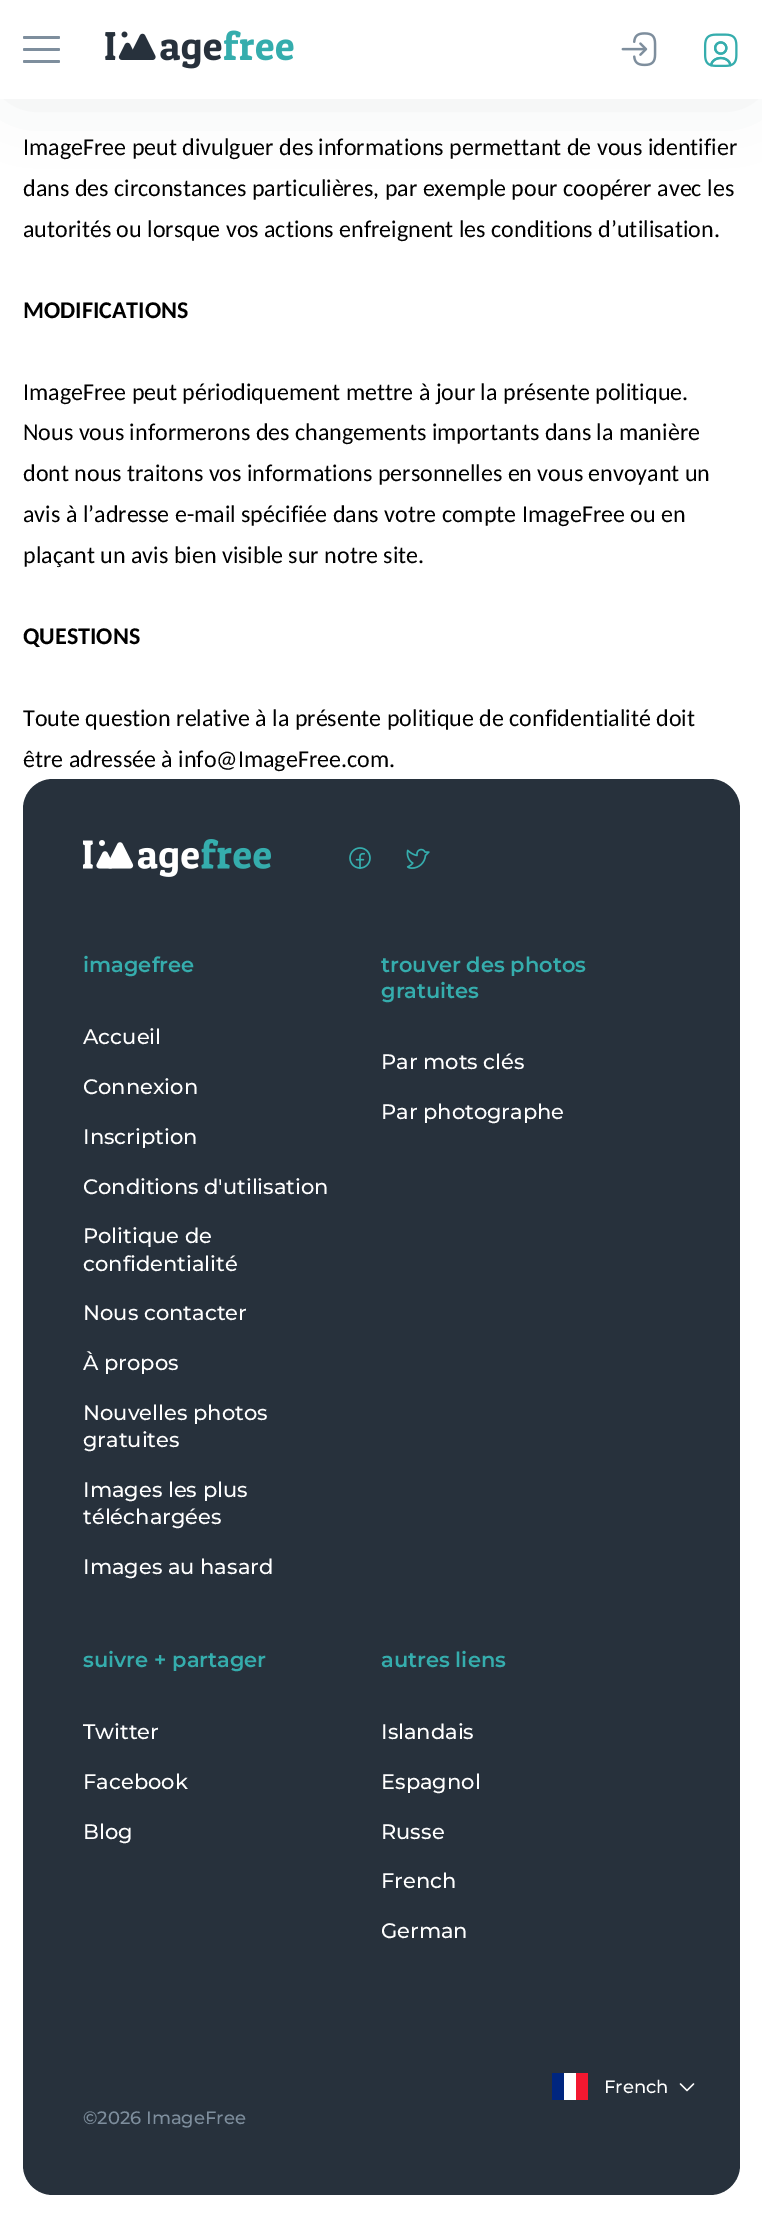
%!PS-Adobe-3.0
%%BoundingBox: 0 0 762 2224
%%LanguageLevel: 3
%%Pages: 1
%%EndComments
%%BeginProlog
/m { moveto } bind def
/l { lineto } bind def
/f { fill } bind def
/S { stroke } bind def
/w { setlinewidth } bind def
/fn { [ exch dup neg 0 0 3 -1 roll 0 0 ] selectfont } def
/tx { moveto show } def
/bx { rectfill } def
/al { dup .setfillconstantalpha .setstrokeconstantalpha } def
/rr { 5 dict begin { /r /h /w /y /x } { exch def } forall
  x r add y moveto x w add y 2 copy h add r arct x w add y h add x 1 index r arct
  x y h add x y r arct x y 2 copy exch w add exch r arct closepath end } def
/sh { 12 dict begin { /a /b /q /h /w /y /x } { exch def } forall gsave /was 0 def
  9 -2 -9 { dup b mul 4 div /e exch def 1 sub .425 mul 2.718 exch exp 1 add a .99 .min exch div /now exch def
    1 1 now sub 1 was sub div sub al /was now def
    w h .min e 2 mul add 0 gt { x e sub y e sub w e 2 mul add h e 2 mul add
      q e add b .6 mul add w h .min 2 div e add .min 0 .max rr fill } if } for grestore end } def
/im { 5 dict begin { /h /w /y /x /name } { exch def } forall
  gsave x y translate w h scale
  w h 8 [w 0 0 h 0 0] name (r) file false 3 colorimage grestore end } def
%%EndProlog
%%BeginSetup
<< /PageSize [762 2224] /PageUsesTransparency true >> setpagedevice
%%EndSetup
%%Page: 1 1
0 .pushpdf14devicefilter
0 2224 translate 1 -1 scale
4 setmiterlimit
1 setgray
0 0 762 2224 bx
0.153 0.192 0.235 setrgbcolor
15 15 732 69 0 37.5 0.12 sh
1 setgray
0 0 762 99 bx
0.494 0.557 0.616 setrgbcolor
23 36 37 3 1.5 rr f
23 48 37 3 1.5 rr f
23 60 37 3 1.5 rr f
(image0.raw) 105 30 189 39 im
(image1.raw) 621 32 36 35 im
(image2.raw) 703 33 35 34 im
/Carlito-Regular 24 fn
0 setgray
(ImageFree peut divulguer des informations permettant de vous identifier) 23 155 tx
(dans des circonstances particulières, par exemple pour coopérer avec les) 23 196 tx
(autorités ou lorsque vos actions enfreignent les conditions d’utilisation.) 23 237 tx
/Carlito-Bold 24 fn
(MODIFICATIONS) 23 318 tx
/Carlito-Regular 24 fn
(ImageFree peut périodiquement mettre à jour la présente politique.) 23 400 tx
(Nous vous informerons des changements importants dans la manière) 23 440 tx
(dont nous traitons vos informations personnelles en vous envoyant un) 23 481 tx
(avis à l’adresse e-mail spécifiée dans votre compte ImageFree ou en) 23 522 tx
(plaçant un avis bien visible sur notre site.) 23 563 tx
/Carlito-Bold 24 fn
(QUESTIONS) 23 644 tx
/Carlito-Regular 24 fn
(Toute question relative à la présente politique de confidentialité doit) 23 726 tx
(être adressée à info@ImageFree.com.) 23 767 tx
0.153 0.192 0.235 setrgbcolor
23 779 717 1416 30 rr f
(image3.raw) 83 839 188 38 im
(image4.raw) 349 847 22 22 im
(image5.raw) 406 848 24 21 im
/Montserrat-SemiBold 21 fn
0.208 0.678 0.678 setrgbcolor
(imagefree) 83 972 tx
/Montserrat-Medium 21 fn
1 setgray
(Accueil) 83 1044 tx
(Connexion) 83 1094 tx
(Inscription) 83 1144 tx
(Conditions d'utilisation) 83 1194 tx
(Politique de) 83 1243 tx
(confidentialité) 83 1271 tx
(Nous contacter) 83 1320 tx
(À propos) 83 1370 tx
(Nouvelles photos) 83 1420 tx
(gratuites) 83 1447 tx
(Images les plus) 83 1497 tx
(téléchargées) 83 1524 tx
(Images au hasard) 83 1574 tx
/Montserrat-SemiBold 21 fn
0.208 0.678 0.678 setrgbcolor
(trouver des photos) 381 972 tx
(gratuites) 381 998 tx
/Montserrat-Medium 21 fn
1 setgray
(Par mots clés) 381 1069 tx
(Par photographe) 381 1119 tx
/Montserrat-SemiBold 21 fn
0.208 0.678 0.678 setrgbcolor
(suivre + partager) 83 1667 tx
/Montserrat-Medium 21 fn
1 setgray
(Twitter) 83 1739 tx
(Facebook) 83 1789 tx
(Blog) 83 1839 tx
/Montserrat-SemiBold 21 fn
0.208 0.678 0.678 setrgbcolor
(autres liens) 381 1667 tx
/Montserrat-Medium 21 fn
1 setgray
(Islandais) 381 1739 tx
(Espagnol) 381 1789 tx
(Russe) 381 1839 tx
(French) 381 1888 tx
(German) 381 1938 tx
564 2073 12 27 bx
0 0.149 0.498 setrgbcolor
552 2073 12 27 bx
0.953 0.094 0.188 setrgbcolor
576 2073 12 27 bx
/Montserrat-Medium 18 fn
1 setgray
(French) 604 2093 tx
1.3 w
1 setlinecap
1 setlinejoin
693.5 2084 m 687 2090.5 l 680.5 2084 l S
0.494 0.557 0.616 setrgbcolor
(©2026 ImageFree) 83 2124 tx
.poppdf14devicefilter showpage
%%EOF
